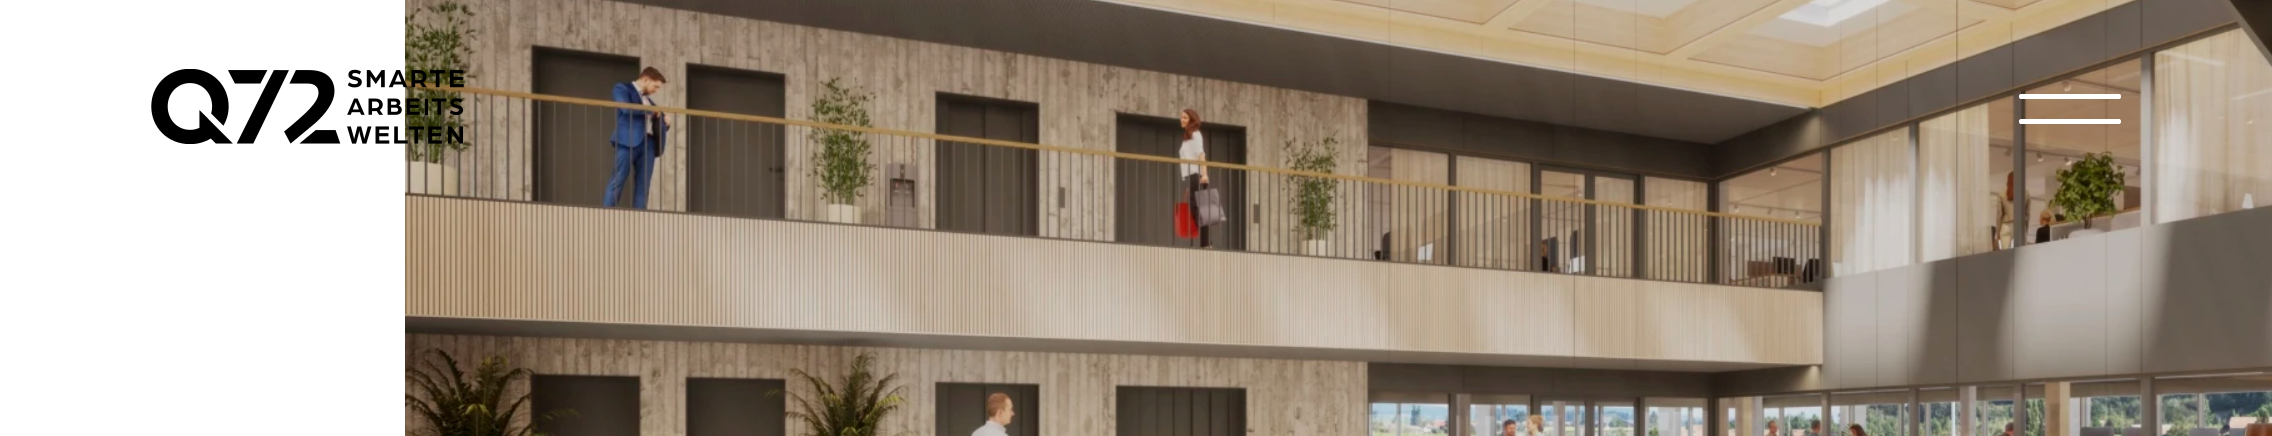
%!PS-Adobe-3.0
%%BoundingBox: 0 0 2272 436
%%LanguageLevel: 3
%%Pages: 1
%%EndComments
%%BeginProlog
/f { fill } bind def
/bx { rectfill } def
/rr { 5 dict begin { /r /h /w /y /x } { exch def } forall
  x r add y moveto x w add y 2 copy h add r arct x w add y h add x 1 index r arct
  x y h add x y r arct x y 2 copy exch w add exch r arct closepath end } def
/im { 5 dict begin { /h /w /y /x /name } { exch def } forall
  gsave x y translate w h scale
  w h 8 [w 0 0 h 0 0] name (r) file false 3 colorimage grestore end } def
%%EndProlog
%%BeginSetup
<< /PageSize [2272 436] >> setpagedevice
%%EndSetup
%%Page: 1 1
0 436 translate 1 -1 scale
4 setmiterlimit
1 setgray
0 0 2272 436 bx
(image0.raw) 405 0 1867 436 im
(image1.raw) 151 69 313 75 im
2019 94 102 5 2.5 rr f
2019 119 102 5 2.5 rr f
showpage
%%EOF
